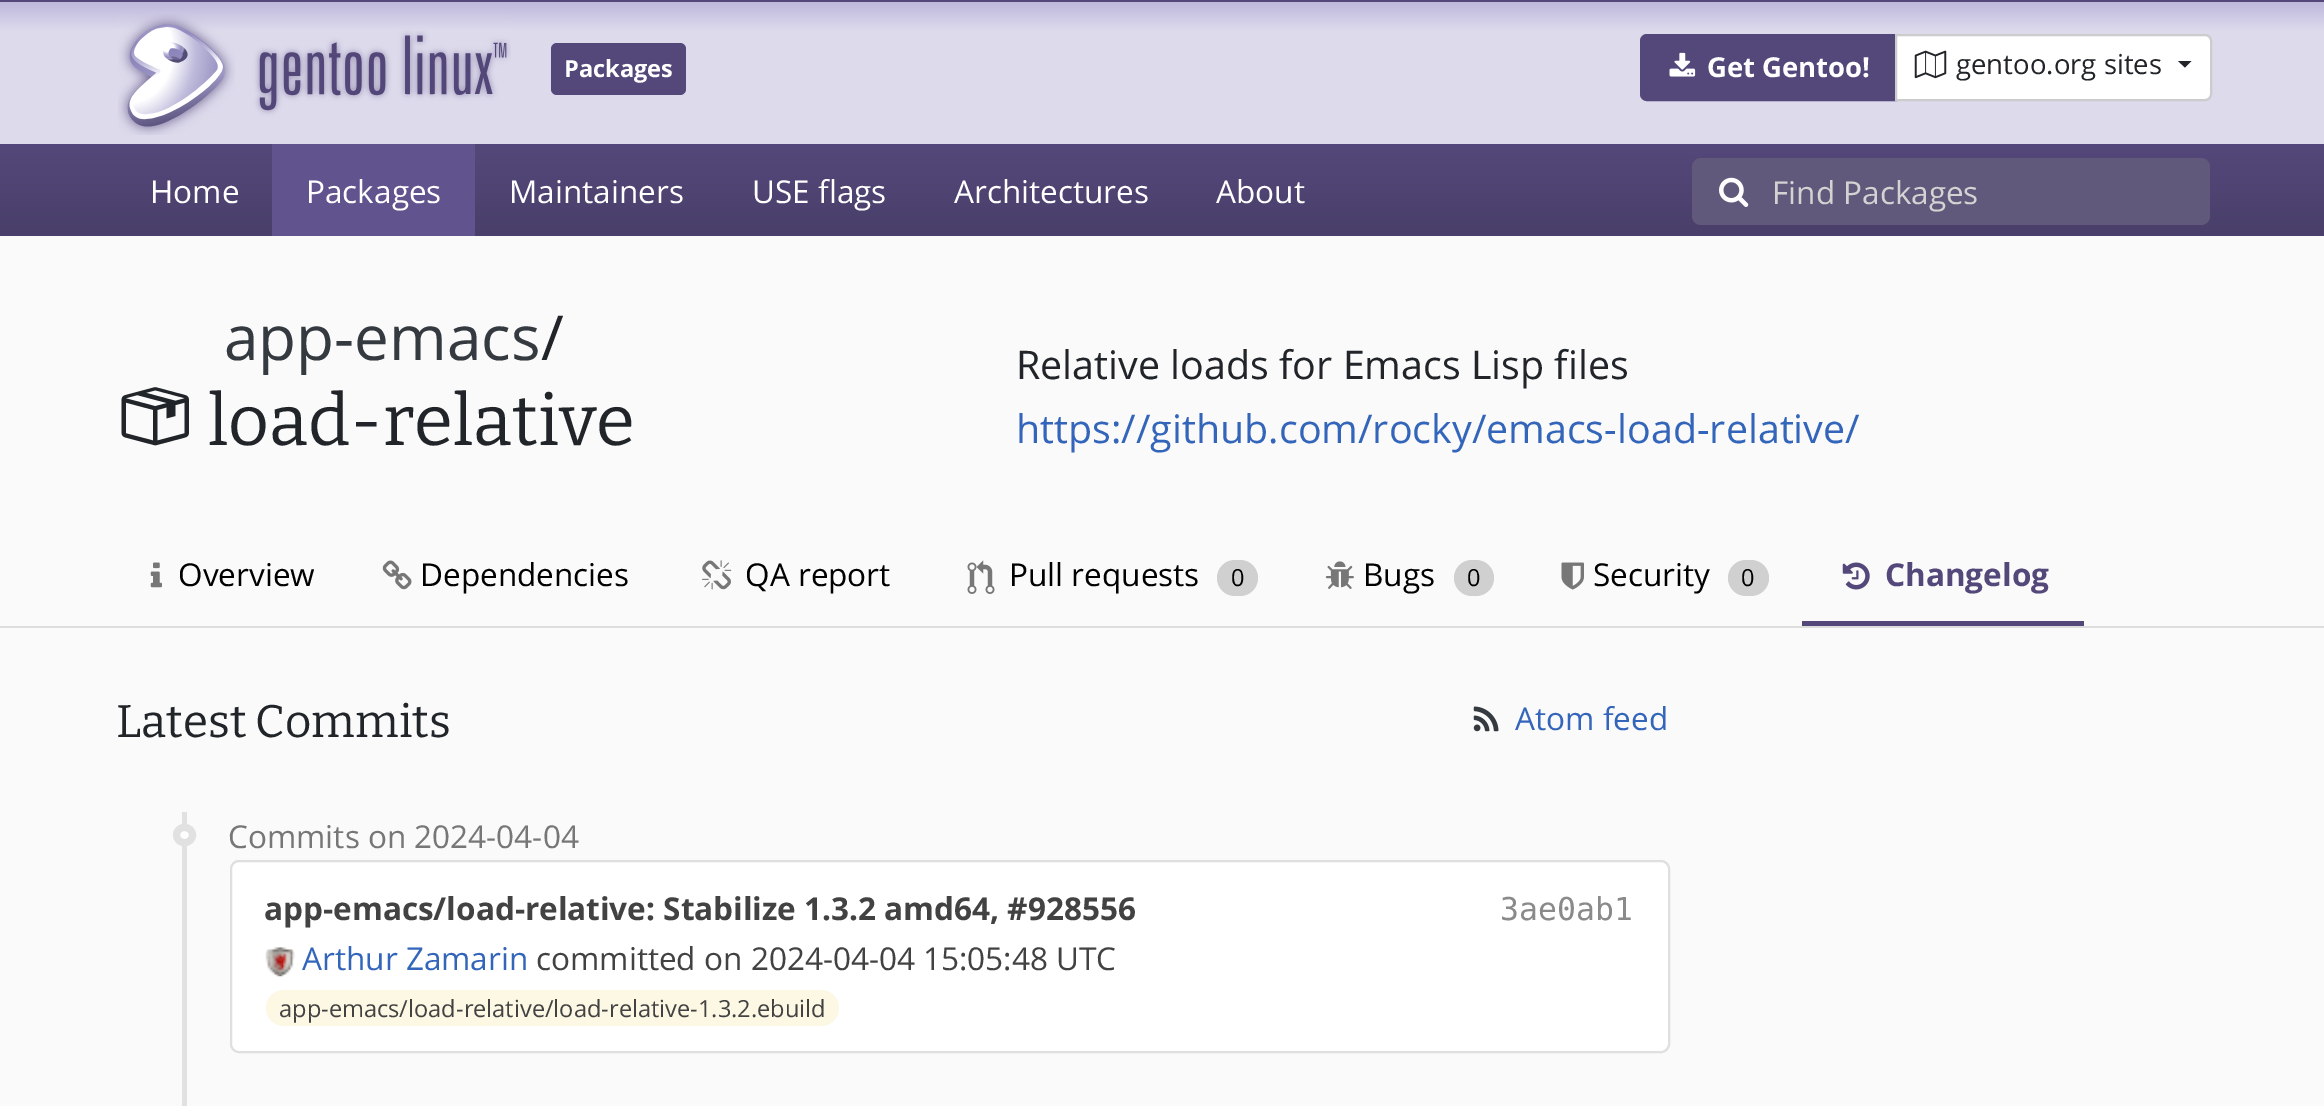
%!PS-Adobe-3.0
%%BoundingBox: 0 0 2324 1106
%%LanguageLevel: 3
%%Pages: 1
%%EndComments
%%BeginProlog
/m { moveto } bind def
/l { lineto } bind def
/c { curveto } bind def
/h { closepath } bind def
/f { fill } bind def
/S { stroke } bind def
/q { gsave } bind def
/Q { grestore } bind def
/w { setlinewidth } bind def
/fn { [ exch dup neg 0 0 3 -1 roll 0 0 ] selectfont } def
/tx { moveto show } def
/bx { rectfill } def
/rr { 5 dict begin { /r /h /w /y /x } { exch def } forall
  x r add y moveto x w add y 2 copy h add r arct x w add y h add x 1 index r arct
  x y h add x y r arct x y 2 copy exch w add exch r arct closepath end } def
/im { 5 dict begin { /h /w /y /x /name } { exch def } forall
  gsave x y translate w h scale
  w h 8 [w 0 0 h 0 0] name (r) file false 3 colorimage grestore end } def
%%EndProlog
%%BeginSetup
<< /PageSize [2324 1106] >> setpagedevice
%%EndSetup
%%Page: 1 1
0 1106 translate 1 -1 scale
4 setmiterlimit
0.98 setgray
0 0 2324 1106 bx
0.329 0.282 0.478 setrgbcolor
0 0 2324 2 bx
q 0 2 m 2324 2 l 2324 144 l 0 144 l h clip newpath
<< /ShadingType 2 /ColorSpace /DeviceRGB /Coords [1162 2.2 1162 144] /Extend [true true] /Function << /FunctionType 3 /Domain [0 1] /Functions [<< /FunctionType 2 /Domain [0 1] /C0 [0.745 0.722 0.859] /C1 [0.867 0.855 0.925] /N 1 >> << /FunctionType 2 /Domain [0 1] /C0 [0.867 0.855 0.925] /C1 [0.867 0.855 0.925] /N 1 >>] /Bounds [0.2] /Encode [0 1 0 1] >> >> shfill Q
(image0.raw) 118 14 393 121 im
551 43 135 52 6 rr f
/OpenSans-Bold 23.6 fn
1 setgray
(Packages) 564 77 tx
0.329 0.282 0.478 setrgbcolor
1647 35 m 1896 35 l 1896 100 l 1647 100 l 1643.5 100 1641 97.5 1641 94 c 1641 41 l 1641 37.5 1643.5 35 1647 35 c h q f Q
2 w
S
(image1.raw) 1669 52 27 25 im
/OpenSans-Bold 27.5 fn
1 setgray
(Get Gentoo!) 1707 77 tx
1896 35 m 2205 35 l 2208.5 35 2211 37.5 2211 41 c 2211 94 l 2211 97.5 2208.5 100 2205 100 c 1896 100 l h q f Q
0.8 setgray
S
(image2.raw) 1914 50 33 29 im
/OpenSans-Regular 27.5 fn
0.129 0.145 0.161 setrgbcolor
(gentoo.org sites) 1956 74 tx
2178 61 m 2191.5 61 l 2185 67.5 l h f
q 0 144 m 2324 144 l 2324 236 l 0 236 l h clip newpath
<< /ShadingType 2 /ColorSpace /DeviceRGB /Coords [1162 144 1162 236] /Extend [true true] /Function << /FunctionType 2 /Domain [0 1] /C0 [0.329 0.282 0.478] /C1 [0.286 0.247 0.416] /N 1 >> >> shfill Q
/OpenSans-Regular 31.5 fn
1 setgray
(Home) 150 203 tx
0.38 0.325 0.553 setrgbcolor
272 144 203 92 bx
1 setgray
(Packages) 306 203 tx
(Maintainers) 509 203 tx
(USE flags) 752 203 tx
(Architectures) 954 203 tx
(About) 1216 203 tx
0.38 0.349 0.482 setrgbcolor
1701 158 m 1775 158 l 1775 225 l 1701 225 l 1696 225 1692 221 1692 216 c 1692 167 l 1692 162 1696 158 1701 158 c h f
(image3.raw) 1719 177 30 30 im
1773 158 m 2201 158 l 2206 158 2210 162 2210 167 c 2210 216 l 2210 221 2206 225 2201 225 c 1773 225 l h f
0.827 setgray
(Find Packages) 1772 204 tx
/OpenSans-Regular 62 fn
0.204 0.227 0.251 setrgbcolor
(app-emacs) 224 360 tx
0.129 0.145 0.161 setrgbcolor
(/) 541 360 tx
(image4.raw) 121 387 68 59 im
/Bitter-Regular 71 fn
(load-relative) 208 445 tx
/OpenSans-Regular 39.4 fn
(Relative loads for Emacs Lisp files) 1016 379 tx
0.2 0.4 0.733 setrgbcolor
(https://github.com/rocky/emacs-load-relative/) 1016 443 tx
(image5.raw) 150 562 12 26 im
/OpenSans-Regular 31.5 fn
0 setgray
(Overview) 178 586 tx
(image6.raw) 382 560 30 30 im
(Dependencies) 420 586 tx
(image7.raw) 702 560 30 30 im
(QA report) 745 586 tx
(image8.raw) 967 560 28 34 im
(Pull requests) 1009 586 tx
0.816 setgray
1217 560 41 36 18 rr f
/OpenSans-Regular 23.6 fn
0 setgray
(0) 1231 586 tx
(image9.raw) 1325 561 29 28 im
/OpenSans-Regular 31.5 fn
(Bugs) 1363 586 tx
0.816 setgray
1454 560 40 36 18 rr f
/OpenSans-Regular 23.6 fn
0 setgray
(0) 1467 586 tx
(image10.raw) 1561 562 23 28 im
/OpenSans-Regular 31.5 fn
(Security) 1593 586 tx
0.816 setgray
1728 560 41 36 18 rr f
/OpenSans-Regular 23.6 fn
0 setgray
(0) 1741 586 tx
0.329 0.282 0.478 setrgbcolor
1802 621 282 5 bx
(image11.raw) 1842 562 28 28 im
/OpenSans-Bold 31.5 fn
(Changelog) 1885 586 tx
0.867 setgray
0 626 2324 2 bx
/Bitter-Regular 45.75 fn
0.129 0.145 0.161 setrgbcolor
(Latest Commits) 116 737 tx
(image12.raw) 1473 706 26 26 im
/OpenSans-Regular 31.5 fn
0.2 0.4 0.733 setrgbcolor
(Atom feed) 1515 730 tx
0.882 setgray
182 812 5 294 bx
1 setgray
176.5 827.5 16 15 7.5 rr q f Q
0.882 setgray
7 w
S
0.467 setgray
(Commits on 2024-04-04) 228 848 tx
1 setgray
231 861 1438 191 8 rr q f Q
0.875 setgray
2 w
S
/OpenSans-Bold 31.5 fn
0.259 setgray
(app-emacs/load-relative: Stabilize 1.3.2 amd64, #928556) 264 920 tx
/DejaVuSansMono-Regular 31.5 fn
0.541 setgray
(3ae0ab1) 1500 920 tx
(image13.raw) 265 947 30 30 im
/OpenSans-Regular 31.5 fn
0.2 0.4 0.733 setrgbcolor
(Arthur Zamarin) 302 970 tx
0.259 setgray
(committed on 2024-04-04 15:05:48 UTC) 536 970 tx
0.988 0.973 0.89 setrgbcolor
266 990 573 36 18 rr f
/OpenSans-Regular 23.6 fn
0.259 setgray
(app-emacs/load-relative/load-relative-1.3.2.ebuild) 279 1017 tx
showpage
%%EOF
